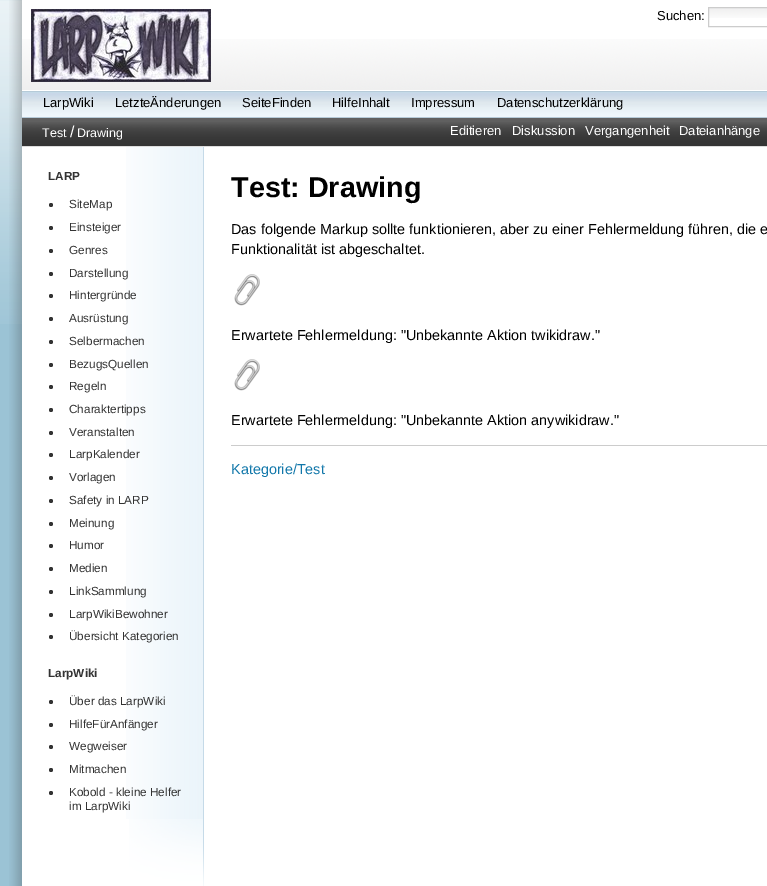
%!PS-Adobe-3.0
%%BoundingBox: 0 0 767 886
%%LanguageLevel: 3
%%Pages: 1
%%EndComments
%%BeginProlog
/f { fill } bind def
/fn { [ exch dup neg 0 0 3 -1 roll 0 0 ] selectfont } def
/tx { moveto show } def
/bx { rectfill } def
/ci { newpath 0 360 arc closepath } def
/im { 5 dict begin { /h /w /y /x /name } { exch def } forall
  gsave x y translate w h scale
  w h 8 [w 0 0 h 0 0] name (r) file false 3 colorimage grestore end } def
%%EndProlog
%%BeginSetup
<< /PageSize [767 886] >> setpagedevice
%%EndSetup
%%Page: 1 1
0 886 translate 1 -1 scale
4 setmiterlimit
0.608 0.765 0.835 setrgbcolor
0 0 767 886 bx
(image0.raw) 0 0 22 324 im
(image1.raw) 9 0 758 886 im
(image2.raw) 22 39 745 51 im
0.867 setgray
22 146 745 1 bx
(image3.raw) 31 9 180 73 im
/LiberationSans-Regular 13 fn
0 setgray
(Suchen:) 657 20 tx
(image4.raw) 709 8 58 10 im
0.8 setgray
708.5 7.5 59 19 rectstroke
(image5.raw) 22 92 745 25 im
0.71 0.792 0.847 setrgbcolor
22 91 745 1 bx
22 117 745 1 bx
(image6.raw) 32 92 72 24 im
0 setgray
(LarpWiki) 43 107 tx
(image7.raw) 104 92 127 24 im
(LetzteÄnderungen) 115 107 tx
(image8.raw) 231 92 91 24 im
(SeiteFinden) 242 107 tx
(image9.raw) 322 92 79 24 im
(HilfeInhalt) 332 107 tx
(image10.raw) 401 92 85 24 im
(Impressum) 411 107 tx
(image11.raw) 486 92 148 24 im
(Datenschutzerklärung) 497 107 tx
0.376 setgray
22 118 745 28 bx
(image12.raw) 22 122 745 24 im
/LiberationSans-Regular 12.5 fn
1 setgray
(Test) 42 137 tx
/LiberationSans-Regular 16 fn
(/) 70 137 tx
/LiberationSans-Regular 12.5 fn
(Drawing) 77 137 tx
/LiberationSans-Regular 13 fn
(Editieren) 450 135 tx
(Diskussion) 512 135 tx
(Vergangenheit) 585 135 tx
(Dateianhänge) 679 135 tx
(image13.raw) 126 147 78 672 im
/LiberationSans-Bold 11.75 fn
0.2 setgray
(LARP) 48 180 tx
51 205 2 ci f
/LiberationSans-Regular 11.75 fn
(SiteMap) 69 208 tx
51 228 2 ci f
(Einsteiger) 69 231 tx
51 251 2 ci f
(Genres) 69 254 tx
51 274 2 ci f
(Darstellung) 69 277 tx
51 296 2 ci f
(Hintergründe) 69 299 tx
51 319 2 ci f
(Ausrüstung) 69 322 tx
51 342 2 ci f
(Selbermachen) 69 345 tx
51 365 2 ci f
(BezugsQuellen) 69 368 tx
51 387 2 ci f
(Regeln) 69 390 tx
51 410 2 ci f
(Charaktertipps) 69 413 tx
51 433 2 ci f
(Veranstalten) 69 436 tx
51 455 2 ci f
(LarpKalender) 69 458 tx
51 478 2 ci f
(Vorlagen) 69 481 tx
51 501 2 ci f
(Safety in LARP) 69 504 tx
51 524 2 ci f
(Meinung) 69 527 tx
51 546 2 ci f
(Humor) 69 549 tx
51 569 2 ci f
(Medien) 69 572 tx
51 592 2 ci f
(LinkSammlung) 69 595 tx
51 615 2 ci f
(LarpWikiBewohner) 69 618 tx
51 637 2 ci f
(Übersicht Kategorien) 69 640 tx
/LiberationSans-Bold 11.75 fn
(LarpWiki) 48 677 tx
51 702 2 ci f
/LiberationSans-Regular 11.75 fn
(Über das LarpWiki) 69 705 tx
51 725 2 ci f
(HilfeFürAnfänger) 69 728 tx
51 747 2 ci f
(Wegweiser) 69 750 tx
51 770 2 ci f
(Mitmachen) 69 773 tx
51 793 2 ci f
(Kobold - kleine Helfer) 69 796 tx
(im LarpWiki) 69 810 tx
(image14.raw) 129 819 75 67 im
/LiberationSans-Bold 28.75 fn
0 setgray
(Test: Drawing) 231 197 tx
/LiberationSans-Regular 14.4 fn
(Das folgende Markup sollte funktionieren, aber zu einer Fehlermeldung führen, die e) 231 234 tx
(Funktionalität ist abgeschaltet.) 231 254 tx
(image15.raw) 234 274 26 32 im
(Erwartete Fehlermeldung: "Unbekannte Aktion twikidraw.") 231 340 tx
(image15.raw) 234 359 26 32 im
(Erwartete Fehlermeldung: "Unbekannte Aktion anywikidraw.") 231 425 tx
0.8 setgray
231 445 536 1 bx
0.067 0.467 0.667 setrgbcolor
(Kategorie/Test) 231 474 tx
showpage
%%EOF
